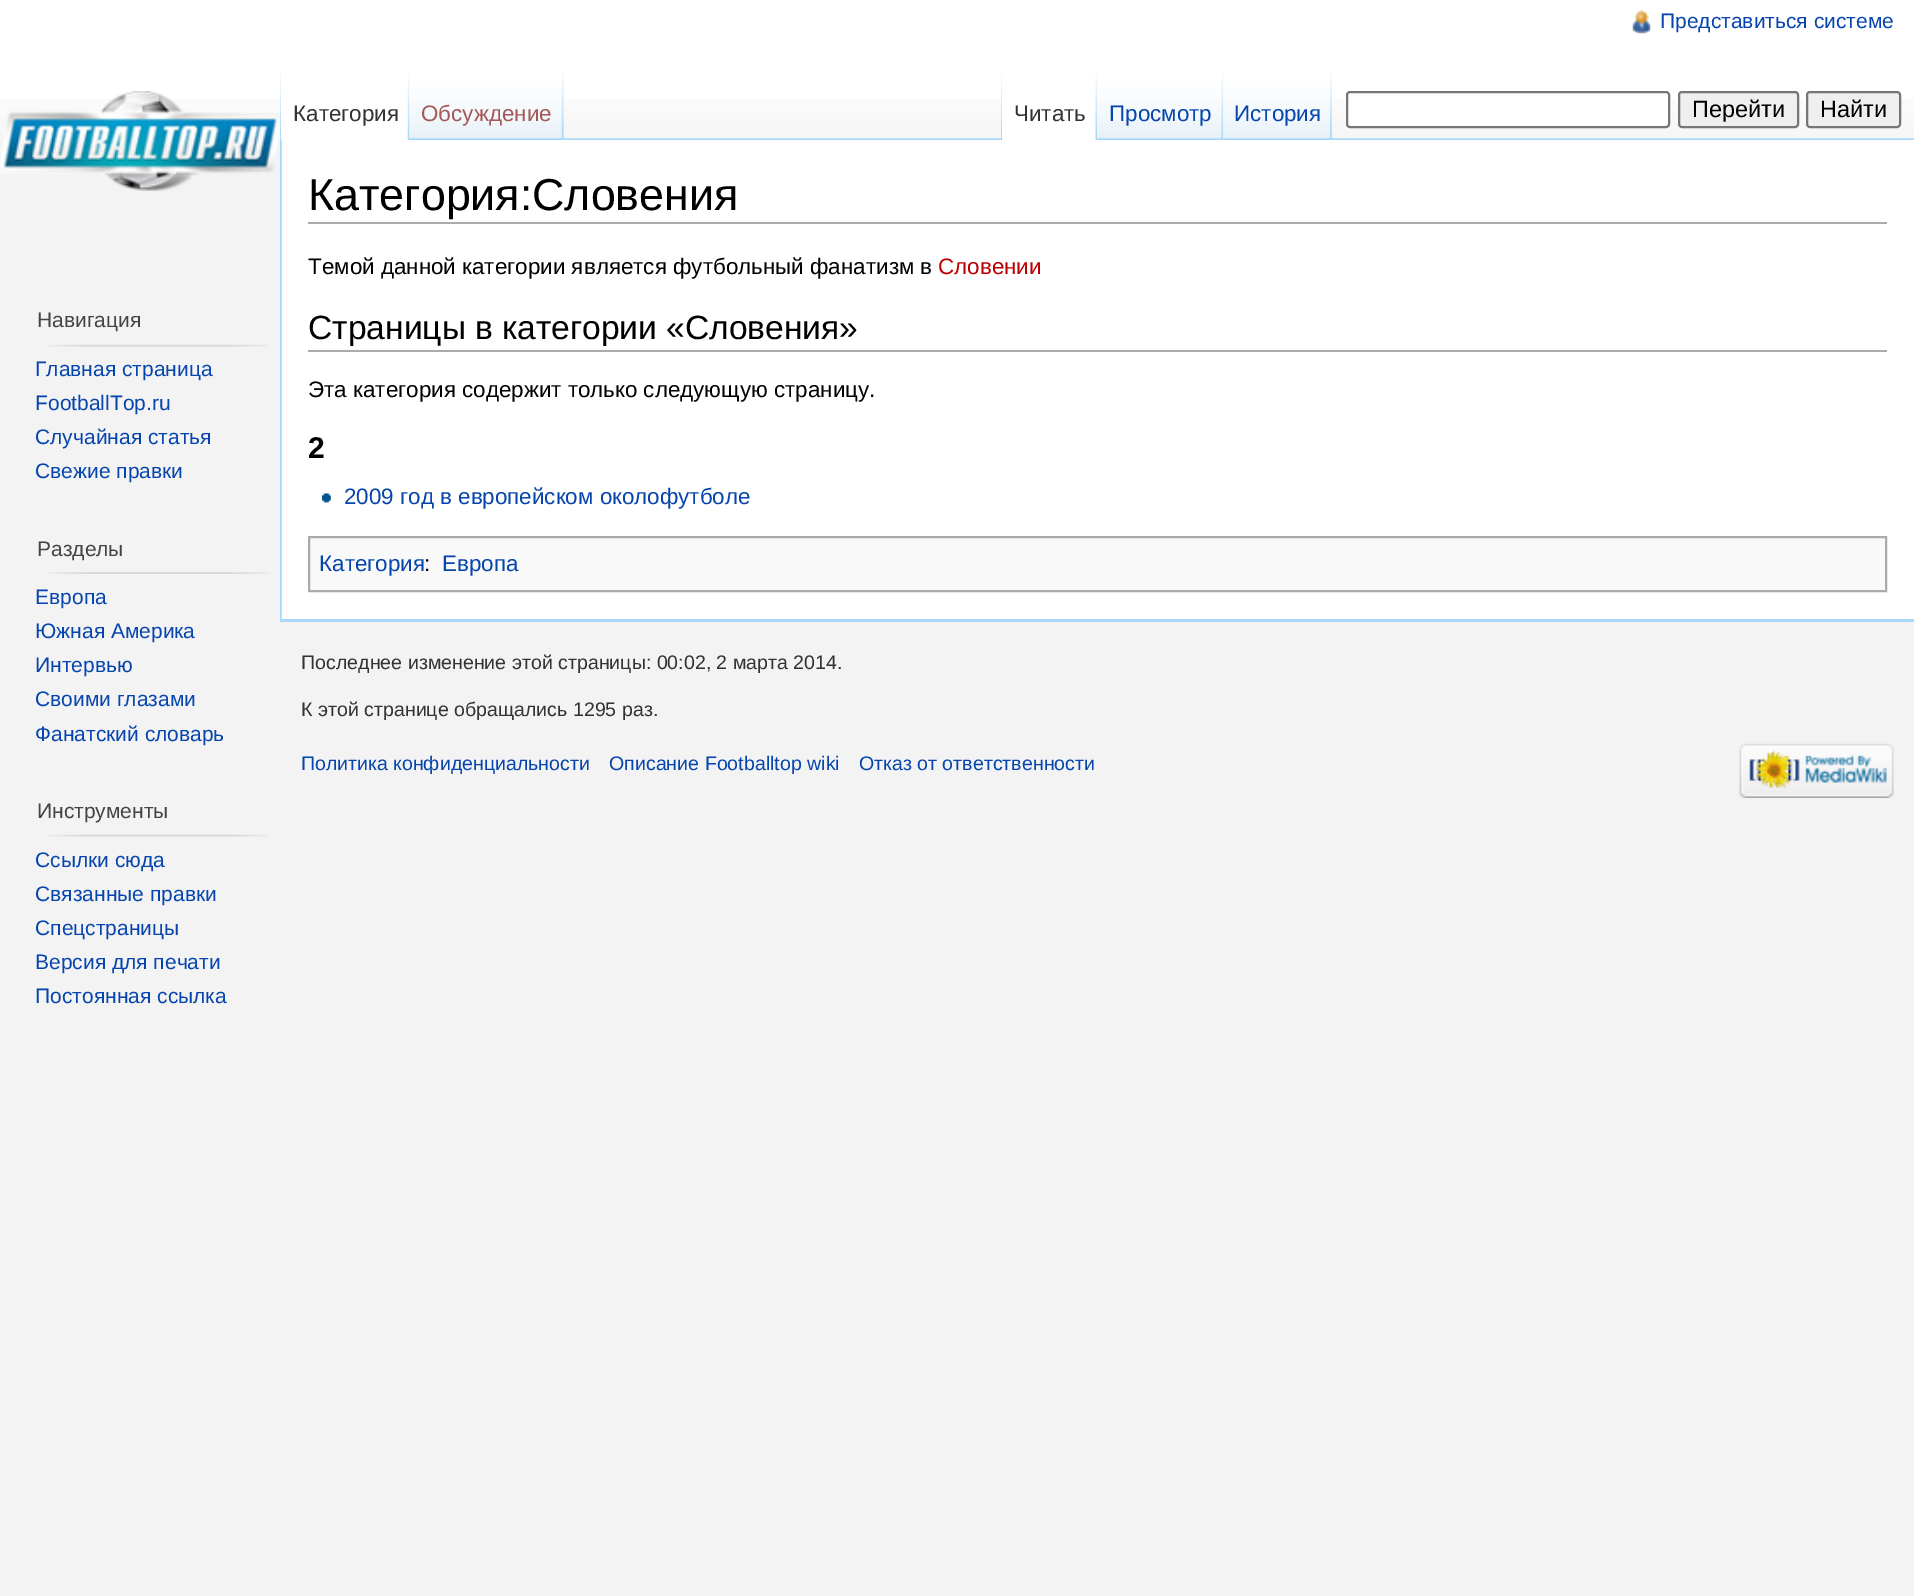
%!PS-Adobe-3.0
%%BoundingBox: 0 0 1914 1596
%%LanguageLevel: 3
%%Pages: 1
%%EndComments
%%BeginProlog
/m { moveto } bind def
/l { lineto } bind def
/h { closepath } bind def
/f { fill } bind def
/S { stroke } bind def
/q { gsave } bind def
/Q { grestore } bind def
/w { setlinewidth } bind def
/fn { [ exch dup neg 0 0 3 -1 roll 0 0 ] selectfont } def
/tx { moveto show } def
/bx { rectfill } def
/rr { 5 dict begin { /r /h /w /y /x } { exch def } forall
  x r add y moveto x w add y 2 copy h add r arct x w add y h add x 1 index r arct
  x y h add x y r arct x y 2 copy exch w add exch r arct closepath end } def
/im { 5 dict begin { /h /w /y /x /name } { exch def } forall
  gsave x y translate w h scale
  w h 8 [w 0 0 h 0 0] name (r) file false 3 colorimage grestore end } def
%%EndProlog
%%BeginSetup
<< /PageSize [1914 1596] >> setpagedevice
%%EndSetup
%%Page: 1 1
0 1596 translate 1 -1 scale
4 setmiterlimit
0.953 setgray
0 0 1914 1596 bx
1 setgray
0 0 1914 99 bx
(image0.raw) 0 99 1914 41 im
(image1.raw) 1632 10 19 24 im
/LiberationSans-Regular 21 fn
0.024 0.271 0.678 setrgbcolor
(Представиться системе) 1660 28 tx
(image12.raw) 280 138 1634 2 im
(image2.raw) 280 70 1 69 im
1 setgray
281 99 129 41 bx
(image3.raw) 407 71 3 69 im
/LiberationSans-Regular 22.4 fn
0.2 setgray
(Категория) 293 121 tx
0.953 setgray
563 70 1 70 bx
(image4.raw) 409 70 155 70 im
(image5.raw) 561 71 3 69 im
0.647 0.345 0.345 setrgbcolor
(Обсуждение) 421 121 tx
(image2.raw) 1001 70 1 69 im
(image6.raw) 1331 70 1 69 im
1 setgray
1002 99 96 41 bx
(image7.raw) 1095 71 3 69 im
0.2 setgray
(Читать) 1014 121 tx
(image8.raw) 1097 70 127 70 im
(image9.raw) 1221 71 3 68 im
0.024 0.271 0.678 setrgbcolor
(Просмотр) 1109 121 tx
(image10.raw) 1223 70 109 70 im
(image11.raw) 1330 71 2 69 im
(История) 1234 121 tx
1 setgray
1347 92 322 35 3 rr q f Q
0.463 setgray
2 w
S
0.937 setgray
1679 92 119 35 3 rr q f Q
0.463 setgray
S
/LiberationSans-Regular 23.5 fn
0 setgray
(Перейти) 1692 117 tx
0.937 setgray
1807 92 93 35 3 rr q f Q
0.463 setgray
S
0 setgray
(Найти) 1820 117 tx
(image13.raw) 0 91 280 100 im
/LiberationSans-Regular 21 fn
0.267 setgray
(Навигация) 37 327 tx
(image14.raw) 46 344 224 3 im
0.024 0.271 0.678 setrgbcolor
(Главная страница) 35 376 tx
(FootballTop.ru) 35 410 tx
(Случайная статья) 35 444 tx
(Свежие правки) 35 478 tx
0.267 setgray
(Разделы) 37 556 tx
(image15.raw) 46 572 224 2 im
0.024 0.271 0.678 setrgbcolor
(Европа) 35 604 tx
(Южная Америка) 35 638 tx
(Интервью) 35 672 tx
(Своими глазами) 35 706 tx
(Фанатский словарь) 35 741 tx
0.267 setgray
(Инструменты) 37 818 tx
(image14.raw) 46 834 224 3 im
0.024 0.271 0.678 setrgbcolor
(Ссылки сюда) 35 867 tx
(Связанные правки) 35 901 tx
(Спецстраницы) 35 935 tx
(Версия для печати) 35 969 tx
(Постоянная ссылка) 35 1003 tx
1 setgray
281 140 1633 479 bx
(image16.raw) 280 140 2 479 im
0.667 setgray
308 222 1579 2 bx
/LiberationSans-Regular 44.75 fn
0 setgray
(Категория:Словения) 308 210 tx
/LiberationSans-Regular 22.4 fn
(Темой данной категории является футбольный фанатизм в) 308 274 tx
0.729 0 0 setrgbcolor
(Словении) 938 274 tx
0.667 setgray
308 350 1579 2 bx
/LiberationSans-Regular 33.6 fn
0 setgray
(Страницы в категории «Словения») 308 339 tx
/LiberationSans-Regular 22.4 fn
(Эта категория содержит только следующую страницу.) 308 397 tx
/LiberationSans-Bold 30 fn
(2) 308 458 tx
(image17.raw) 322 493 9 10 im
/LiberationSans-Regular 22.4 fn
0.024 0.271 0.678 setrgbcolor
(2009 год в европейском околофутболе) 344 504 tx
0.976 setgray
309 537 m 1886 537 l 1886 591 l 309 591 l h q f Q
0.667 setgray
S
0.024 0.271 0.678 setrgbcolor
(Категория) 319 571 tx
0 setgray
(:) 424 571 tx
0.024 0.271 0.678 setrgbcolor
(Европа) 442 571 tx
0.655 0.843 0.976 setrgbcolor
280 619 1634 3 bx
/LiberationSans-Regular 19.6 fn
0.2 setgray
(Последнее изменение этой страницы: 00:02, 2 марта 2014.) 301 669 tx
(К этой странице обращались 1295 раз.) 301 716 tx
0.024 0.271 0.678 setrgbcolor
(Политика конфиденциальности) 301 770 tx
(Описание Footballtop wiki) 609 770 tx
(Отказ от ответственности) 859 770 tx
(image18.raw) 1739 743 155 55 im
showpage
%%EOF
